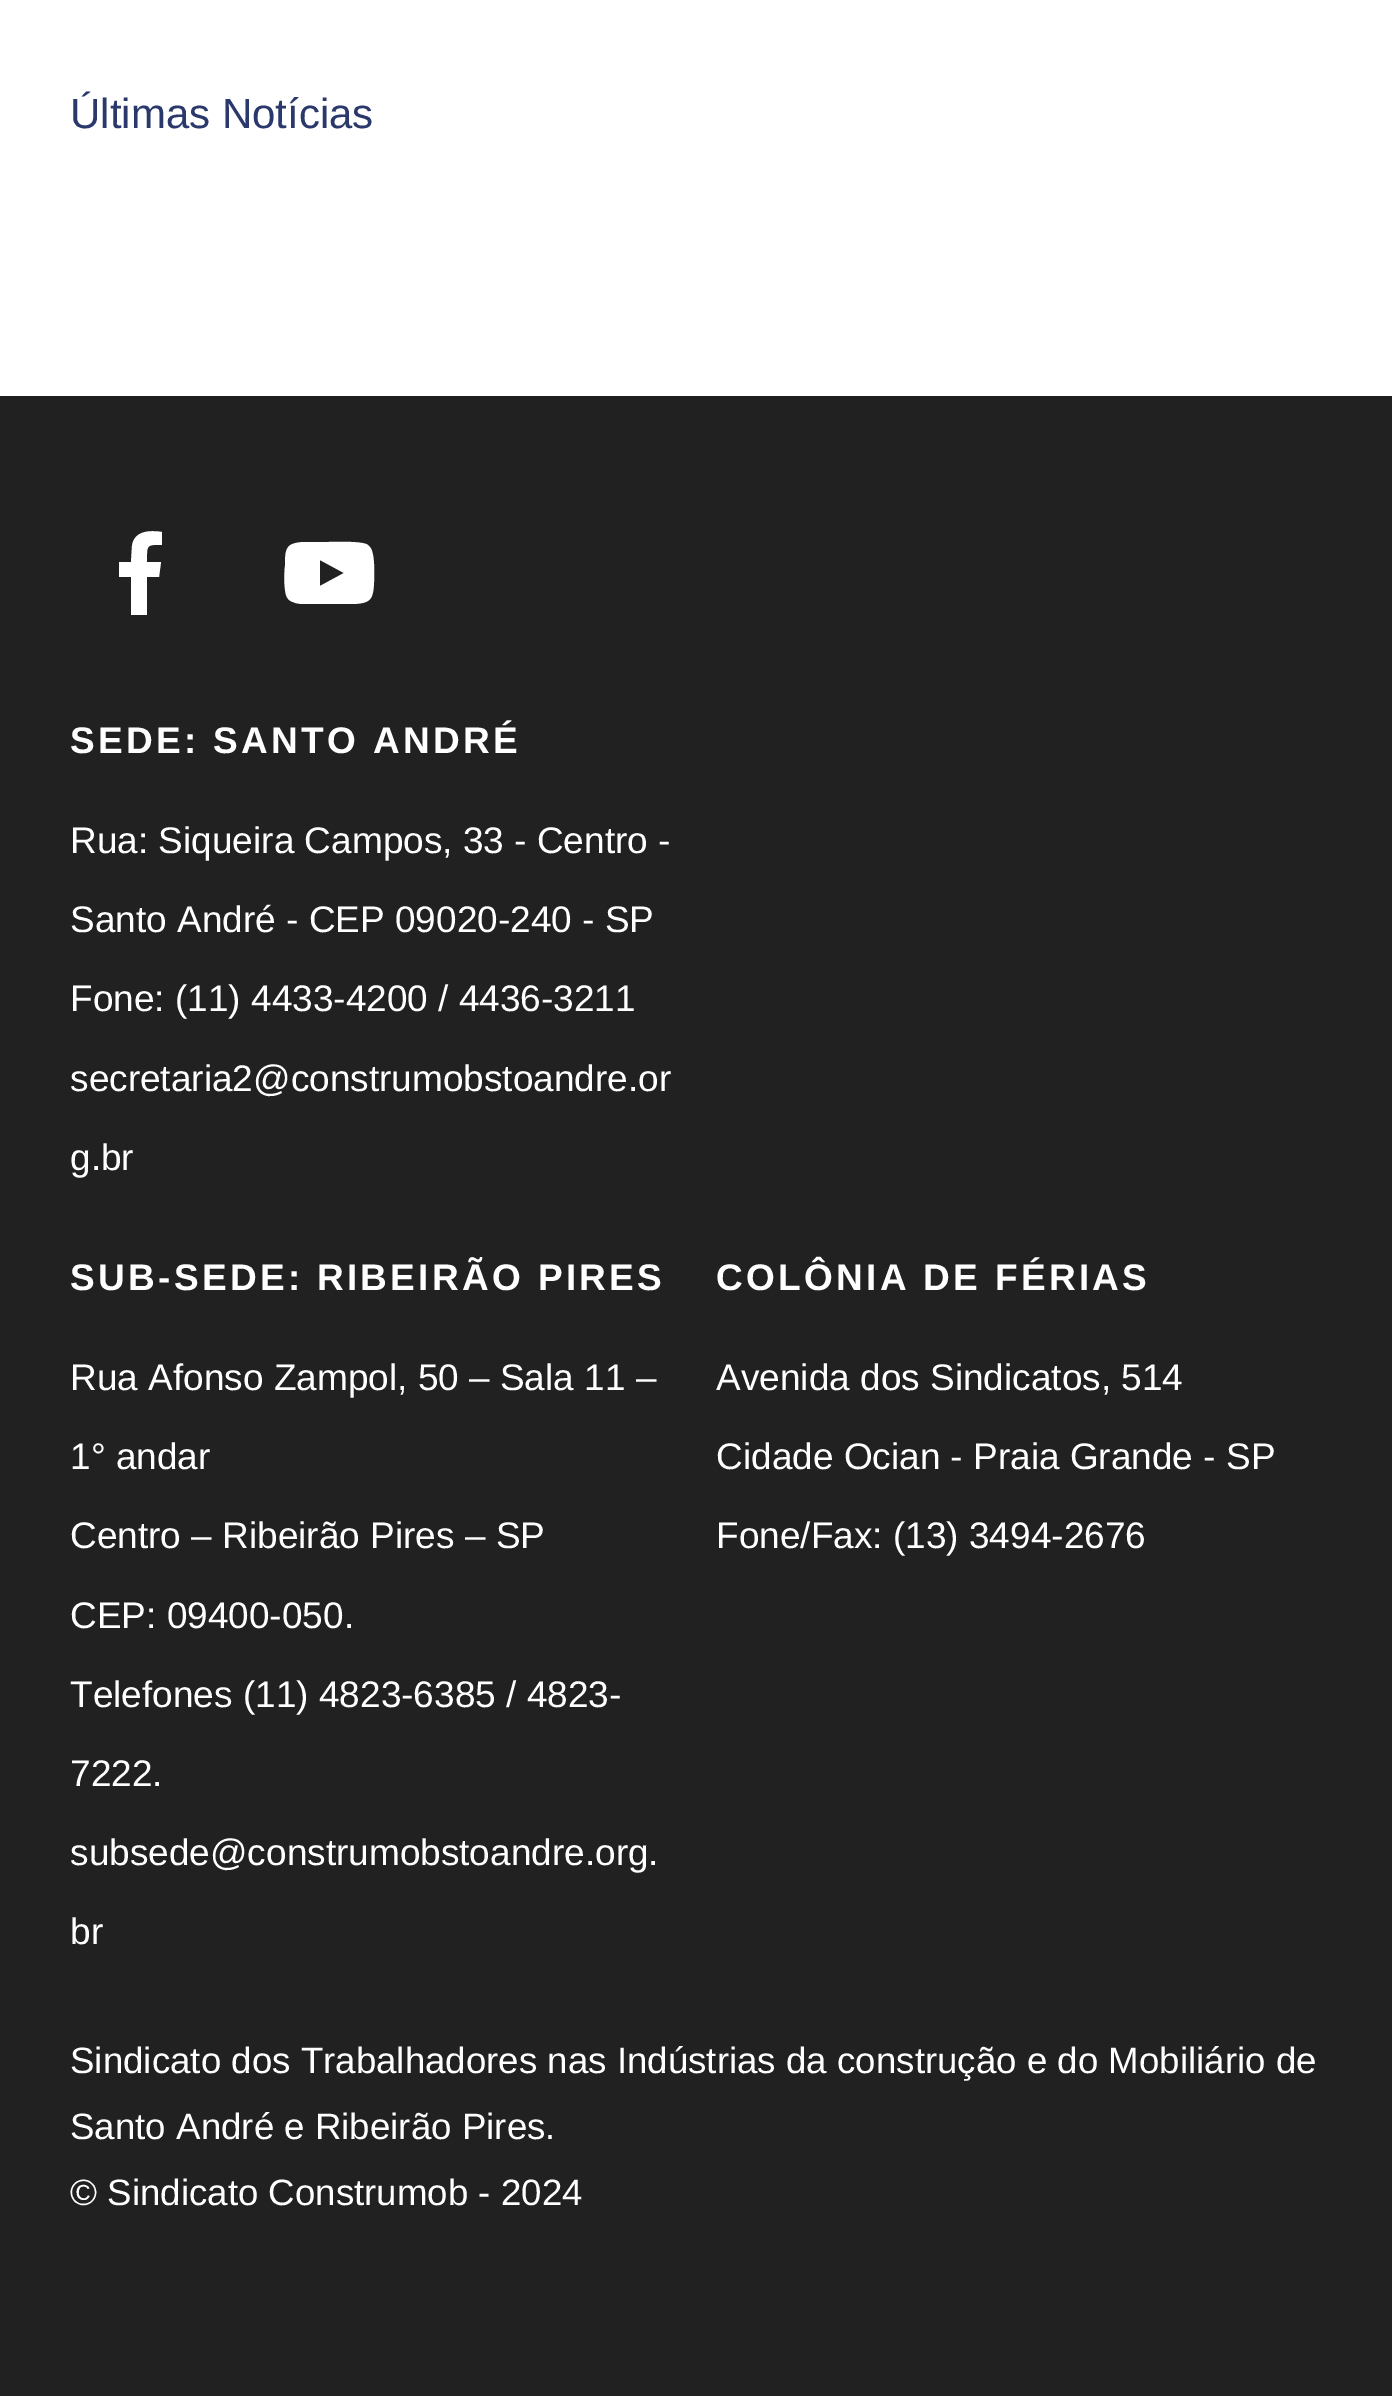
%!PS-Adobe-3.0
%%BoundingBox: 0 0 1392 2396
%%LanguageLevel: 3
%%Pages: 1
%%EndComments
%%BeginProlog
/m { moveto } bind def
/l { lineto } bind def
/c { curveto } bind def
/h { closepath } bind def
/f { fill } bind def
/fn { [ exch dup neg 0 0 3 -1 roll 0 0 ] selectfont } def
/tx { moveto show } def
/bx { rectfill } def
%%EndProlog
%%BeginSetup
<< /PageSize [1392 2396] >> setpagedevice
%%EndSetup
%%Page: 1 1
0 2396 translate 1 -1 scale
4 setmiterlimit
1 setgray
0 0 1392 2396 bx
/LiberationSans-Regular 42 fn
0.165 0.22 0.42 setrgbcolor
(Últimas Notícias) 70 128 tx
0.129 setgray
0 399 1392 1997 bx
0.122 setgray
0 396 1392 3 bx
1 setgray
154 545 m 148 545 147 548 147 554 c 147 562 l 161 562 l 159 577 l 147 577 l 147 615 l 131 615 l 131 577 l 119 577 l 119 562 l 131 562 l 132 546 l 134 531 149 530 162 532 c 162 545 l h f
372 551 m 375 561 374 573 374 583 c 373 599 371 603 354 604 c 332 604 l 306 604 l 302 604 297 604 293 602 c 289 601 287 598 286 595 c 284 587 284 575 285 566 c 285 548 286 543 304 542 c 328 542 l 336 542 358 541 366 544 c 369 545 371 548 372 551 c h 320 586 m 344 573 l 320 560 l h f
/LiberationSans-Bold 37 fn
70 753 m 3.3 0 (SEDE: SANTO ANDRÉ) ashow
/LiberationSans-Regular 37 fn
(Rua: Siqueira Campos, 33 - Centro -) 70 853 tx
(Santo André - CEP 09020-240 - SP) 70 932 tx
(Fone: \(11\) 4433-4200 / 4436-3211) 70 1011 tx
(secretaria2@construmobstoandre.or) 70 1091 tx
(g.br) 70 1170 tx
/LiberationSans-Bold 37 fn
70 1290 m 3.3 0 (SUB-SEDE: RIBEIRÃO PIRES) ashow
/LiberationSans-Regular 37 fn
(Rua Afonso Zampol, 50 – Sala 11 –) 70 1390 tx
(1° andar) 70 1469 tx
(Centro – Ribeirão Pires – SP) 70 1548 tx
(CEP: 09400-050.) 70 1628 tx
(Telefones \(11\) 4823-6385 / 4823-) 70 1707 tx
(7222.) 70 1786 tx
(subsede@construmobstoandre.org.) 70 1865 tx
(br) 70 1944 tx
/LiberationSans-Bold 37 fn
716 1290 m 3.3 0 (COLÔNIA DE FÉRIAS) ashow
/LiberationSans-Regular 37 fn
(Avenida dos Sindicatos, 514) 716 1390 tx
(Cidade Ocian - Praia Grande - SP) 716 1469 tx
(Fone/Fax: \(13\) 3494-2676) 716 1548 tx
/LiberationSans-Regular 36.7 fn
(Sindicato dos Trabalhadores nas Indústrias da construção e do Mobiliário de) 70 2073 tx
(Santo André e Ribeirão Pires.) 70 2139 tx
(© Sindicato Construmob - 2024) 70 2205 tx
showpage
%%EOF
